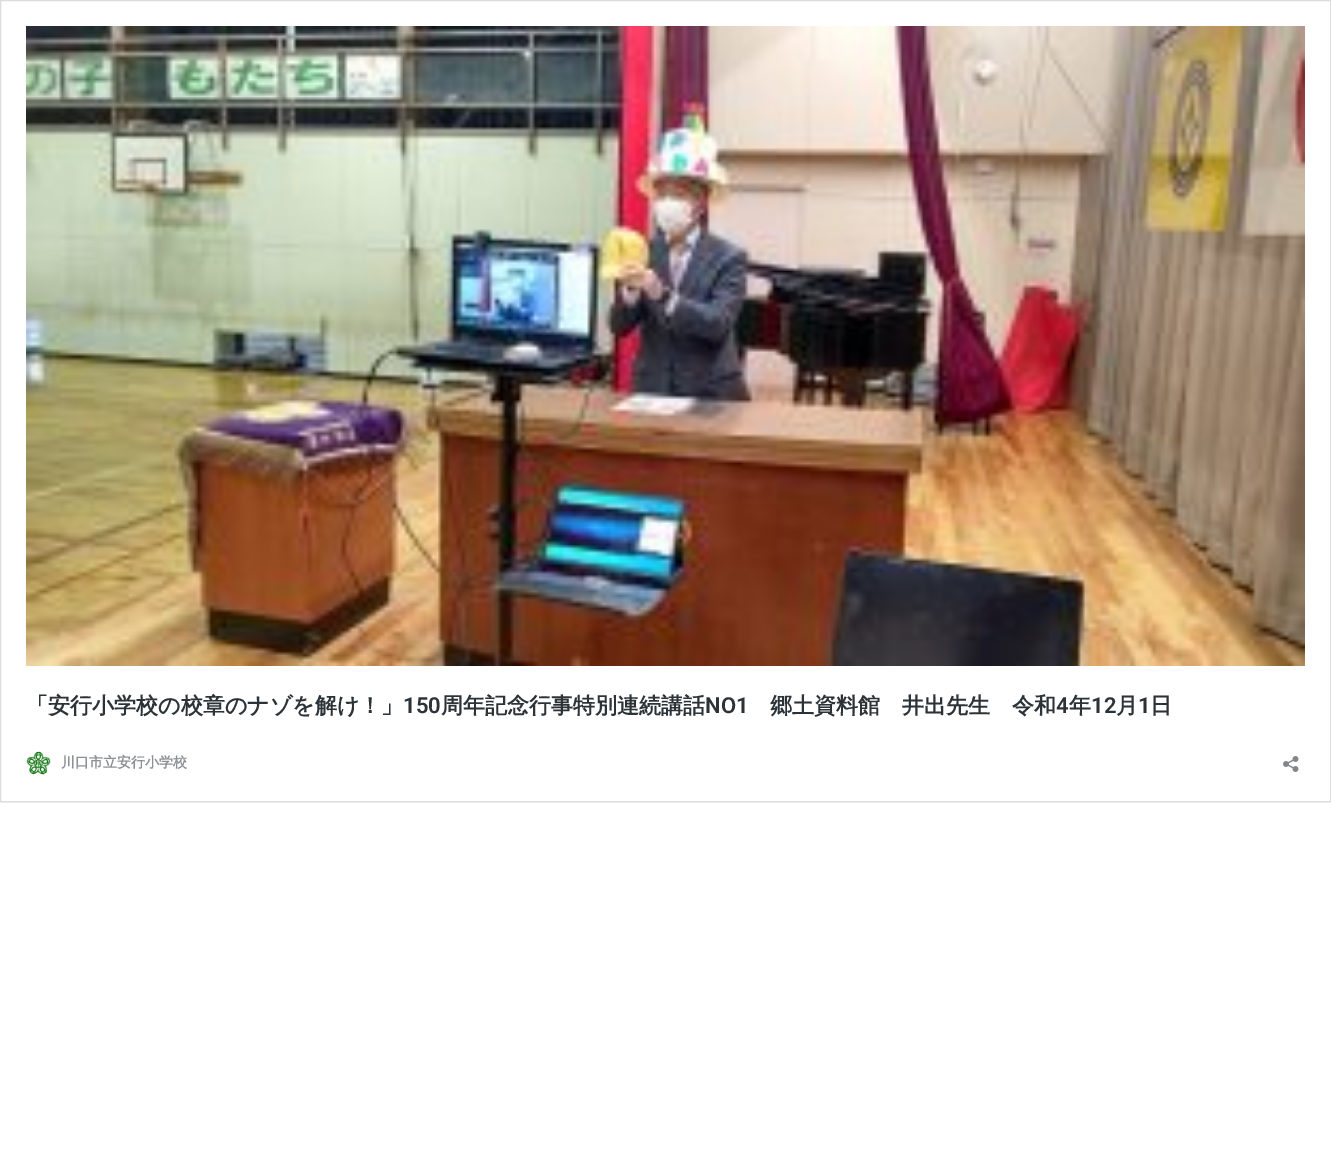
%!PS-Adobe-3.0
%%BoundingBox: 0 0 1331 1169
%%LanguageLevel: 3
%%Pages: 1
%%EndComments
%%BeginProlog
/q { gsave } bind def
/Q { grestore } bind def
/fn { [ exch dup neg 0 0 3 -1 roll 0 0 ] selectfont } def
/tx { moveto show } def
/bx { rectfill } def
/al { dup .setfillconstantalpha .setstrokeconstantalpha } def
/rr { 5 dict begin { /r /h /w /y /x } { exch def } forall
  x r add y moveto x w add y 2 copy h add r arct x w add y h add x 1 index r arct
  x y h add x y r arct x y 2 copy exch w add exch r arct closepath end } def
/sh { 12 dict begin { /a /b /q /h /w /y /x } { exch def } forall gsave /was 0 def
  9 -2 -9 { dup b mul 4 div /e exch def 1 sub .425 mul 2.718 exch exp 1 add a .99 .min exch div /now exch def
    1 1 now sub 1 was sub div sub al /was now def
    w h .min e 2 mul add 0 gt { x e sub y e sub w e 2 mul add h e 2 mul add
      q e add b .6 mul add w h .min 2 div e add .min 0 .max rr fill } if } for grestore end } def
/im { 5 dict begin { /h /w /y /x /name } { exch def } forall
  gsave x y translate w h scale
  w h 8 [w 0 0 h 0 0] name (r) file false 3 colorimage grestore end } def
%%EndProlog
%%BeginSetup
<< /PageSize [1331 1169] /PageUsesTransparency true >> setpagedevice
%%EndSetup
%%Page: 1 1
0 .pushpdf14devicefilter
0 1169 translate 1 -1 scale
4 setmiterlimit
1 setgray
0 0 1331 1169 bx
q
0 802 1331 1 rectclip
0 setgray
0 1 1331 802 0 0.5 0.05 sh
Q
0.863 0.863 0.871 setrgbcolor
0.5 0.5 1330 801 rectstroke
(image0.raw) 26 26 1279 640 im
/WenQuanYiZenHei-Bold 22 fn
0.173 0.2 0.22 setrgbcolor
(「安行小学校の校章のナゾを解け！」) 26 713 tx
/Roboto-SemiBold 22 fn
(150) 403 713 tx
/WenQuanYiZenHei-Bold 22 fn
(周年記念行事特別連続講話) 441 713 tx
/Roboto-SemiBold 22 fn
(NO1) 705 713 tx
/WenQuanYiZenHei-Bold 22 fn
(郷土資料館　井出先生　令和) 770 713 tx
/Roboto-SemiBold 22 fn
(4) 1056 713 tx
/WenQuanYiZenHei-Bold 22 fn
(年) 1069 713 tx
/Roboto-SemiBold 22 fn
(12) 1091 713 tx
/WenQuanYiZenHei-Bold 22 fn
(月) 1116 713 tx
/Roboto-SemiBold 22 fn
(1) 1138 713 tx
/WenQuanYiZenHei-Bold 22 fn
(日) 1150 713 tx
(image1.raw) 26 751 25 24 im
/WenQuanYiZenHei-Bold 14 fn
0.549 0.561 0.58 setrgbcolor
(川口市立安行小学校) 61 767 tx
(image2.raw) 1283 756 16 16 im
.poppdf14devicefilter showpage
%%EOF
